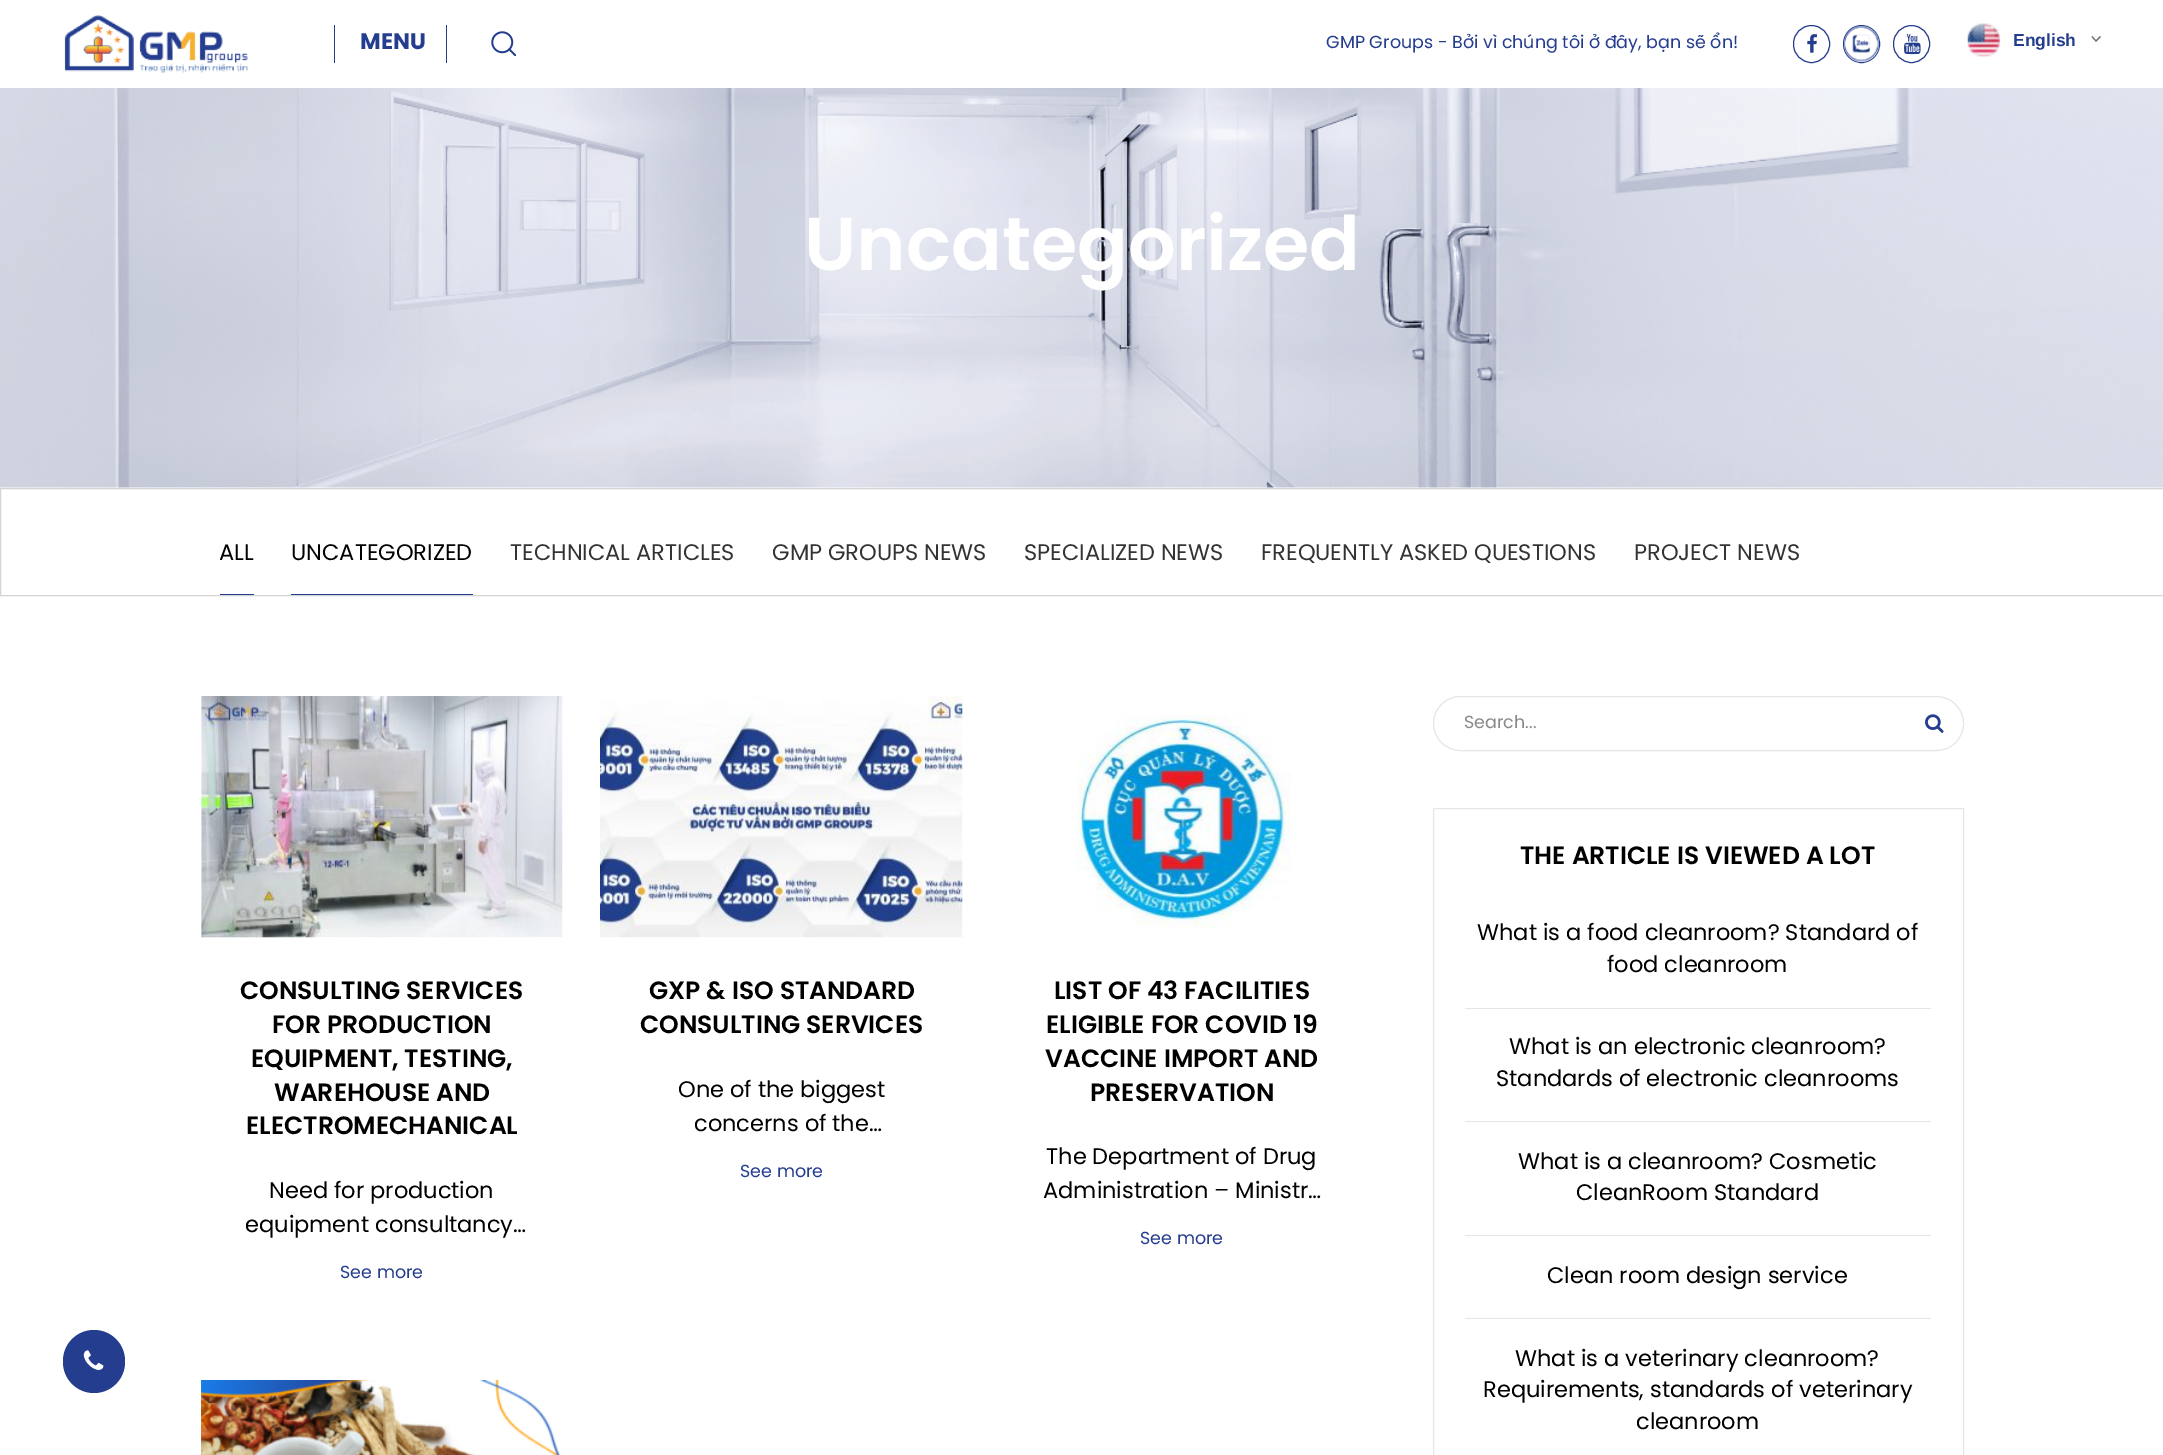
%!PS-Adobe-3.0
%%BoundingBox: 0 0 2163 1455
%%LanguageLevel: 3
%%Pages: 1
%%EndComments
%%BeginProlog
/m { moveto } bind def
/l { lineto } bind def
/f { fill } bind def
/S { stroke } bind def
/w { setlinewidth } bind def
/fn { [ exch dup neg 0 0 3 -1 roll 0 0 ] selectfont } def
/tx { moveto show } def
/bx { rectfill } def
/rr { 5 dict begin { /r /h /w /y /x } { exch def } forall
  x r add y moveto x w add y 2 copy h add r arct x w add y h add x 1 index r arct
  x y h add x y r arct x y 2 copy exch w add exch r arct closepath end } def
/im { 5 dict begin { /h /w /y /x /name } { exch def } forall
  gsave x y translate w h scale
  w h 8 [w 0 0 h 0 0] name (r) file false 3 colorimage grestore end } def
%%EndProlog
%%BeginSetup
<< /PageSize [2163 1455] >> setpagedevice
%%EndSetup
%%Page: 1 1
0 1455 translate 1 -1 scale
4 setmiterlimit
1 setgray
0 0 2163 1455 bx
(image0.raw) 64 15 184 58 im
0.145 0.239 0.561 setrgbcolor
334 25 1 38 bx
/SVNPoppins-Bold 22.5 fn
(MENU) 360 49 tx
446 25 1 38 bx
(image1.raw) 491 31 25 25 im
/SVNPoppins-Regular 17.5 fn
(GMP Groups - Bởi vì chúng tôi ở đây, bạn sẽ ổn!) 1326 48 tx
1793.5 25.5 36 37 18 rr S
(image2.raw) 1807 34 10 19 im
1843.5 25.5 36 37 18 rr S
(image3.raw) 1843 26 36 36 im
1893.5 25.5 36 37 18 rr S
(image4.raw) 1904 34 17 21 im
0.439 setgray
1.1 w
2092 36.5 m 2096 41 l 2100.5 36.5 l S
(image5.raw) 1967 23 33 34 im
/LiberationSans-Bold 17.5 fn
0.145 0.239 0.561 setrgbcolor
(English) 2013 46 tx
(image6.raw) 0 88 2163 400 im
/SVNPoppins-SemiBold 75 fn
1 setgray
(Uncategorized) 804 270 tx
0.831 setgray
1 w
0.5 488.5 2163 107 rectstroke
/SVNPoppins-Regular 22.5 fn
0 setgray
(ALL) 219 560 tx
0.145 0.239 0.561 setrgbcolor
220 594 34 1 bx
0 setgray
(UNCATEGORIZED) 291 560 tx
0.145 0.239 0.561 setrgbcolor
291 594 182 1 bx
0.2 setgray
(TECHNICAL ARTICLES) 510 560 tx
(GMP GROUPS NEWS) 772 560 tx
(SPECIALIZED NEWS) 1024 560 tx
(FREQUENTLY ASKED QUESTIONS) 1261 560 tx
(PROJECT NEWS) 1634 560 tx
0.145 0.239 0.561 setrgbcolor
63 1330 62 63 31 rr f
(image7.raw) 83 1350 21 20 im
(image8.raw) 201 696 362 242 im
/SVNPoppins-SemiBold 25 fn
0 setgray
(CONSULTING SERVICES) 240 999 tx
(FOR PRODUCTION) 272 1033 tx
(EQUIPMENT, TESTING,) 251 1067 tx
(WAREHOUSE AND) 274 1101 tx
(ELECTROMECHANICAL) 246 1134 tx
/SVNPoppins-Regular 22.5 fn
(Need for production) 269 1198 tx
(equipment consultancy…) 245 1232 tx
/SVNPoppins-Regular 17.5 fn
0.145 0.239 0.561 setrgbcolor
(See more) 340 1278 tx
(image9.raw) 600 696 363 242 im
/SVNPoppins-SemiBold 25 fn
0 setgray
(GXP & ISO STANDARD) 649 999 tx
(CONSULTING SERVICES) 640 1033 tx
/SVNPoppins-Regular 22.5 fn
(One of the biggest) 678 1097 tx
(concerns of the…) 694 1131 tx
/SVNPoppins-Regular 17.5 fn
0.145 0.239 0.561 setrgbcolor
(See more) 740 1177 tx
(image10.raw) 1076 715 215 213 im
/SVNPoppins-SemiBold 25 fn
0 setgray
(LIST OF 43 FACILITIES) 1054 999 tx
(ELIGIBLE FOR COVID 19) 1046 1033 tx
(VACCINE IMPORT AND) 1045 1067 tx
(PRESERVATION) 1090 1101 tx
/SVNPoppins-Regular 22.5 fn
(The Department of Drug) 1046 1164 tx
(Administration – Ministr…) 1043 1198 tx
/SVNPoppins-Regular 17.5 fn
0.145 0.239 0.561 setrgbcolor
(See more) 1140 1244 tx
(image11.raw) 201 1380 360 75 im
0.902 setgray
1433.5 696.5 530 54 27 rr S
0.537 setgray
(Search...) 1464 728 tx
(image12.raw) 1925 714 19 19 im
0.902 setgray
1433.5 808.5 530 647 rectstroke
/SVNPoppins-SemiBold 25 fn
0 setgray
(THE ARTICLE IS VIEWED A LOT) 1520 864 tx
/SVNPoppins-Regular 22.5 fn
(What is a food cleanroom? Standard of) 1477 940 tx
(food cleanroom) 1607 972 tx
0.902 setgray
1465 1008 466 1 bx
0 setgray
(What is an electronic cleanroom?) 1509 1054 tx
(Standards of electronic cleanrooms) 1496 1086 tx
0.902 setgray
1465 1121 466 1 bx
0 setgray
(What is a cleanroom? Cosmetic) 1518 1169 tx
(CleanRoom Standard) 1576 1200 tx
0.902 setgray
1465 1235 466 1 bx
0 setgray
(Clean room design service) 1547 1283 tx
0.902 setgray
1465 1318 466 1 bx
0 setgray
(What is a veterinary cleanroom?) 1515 1366 tx
(Requirements, standards of veterinary) 1483 1397 tx
(cleanroom) 1636 1429 tx
showpage
%%EOF
